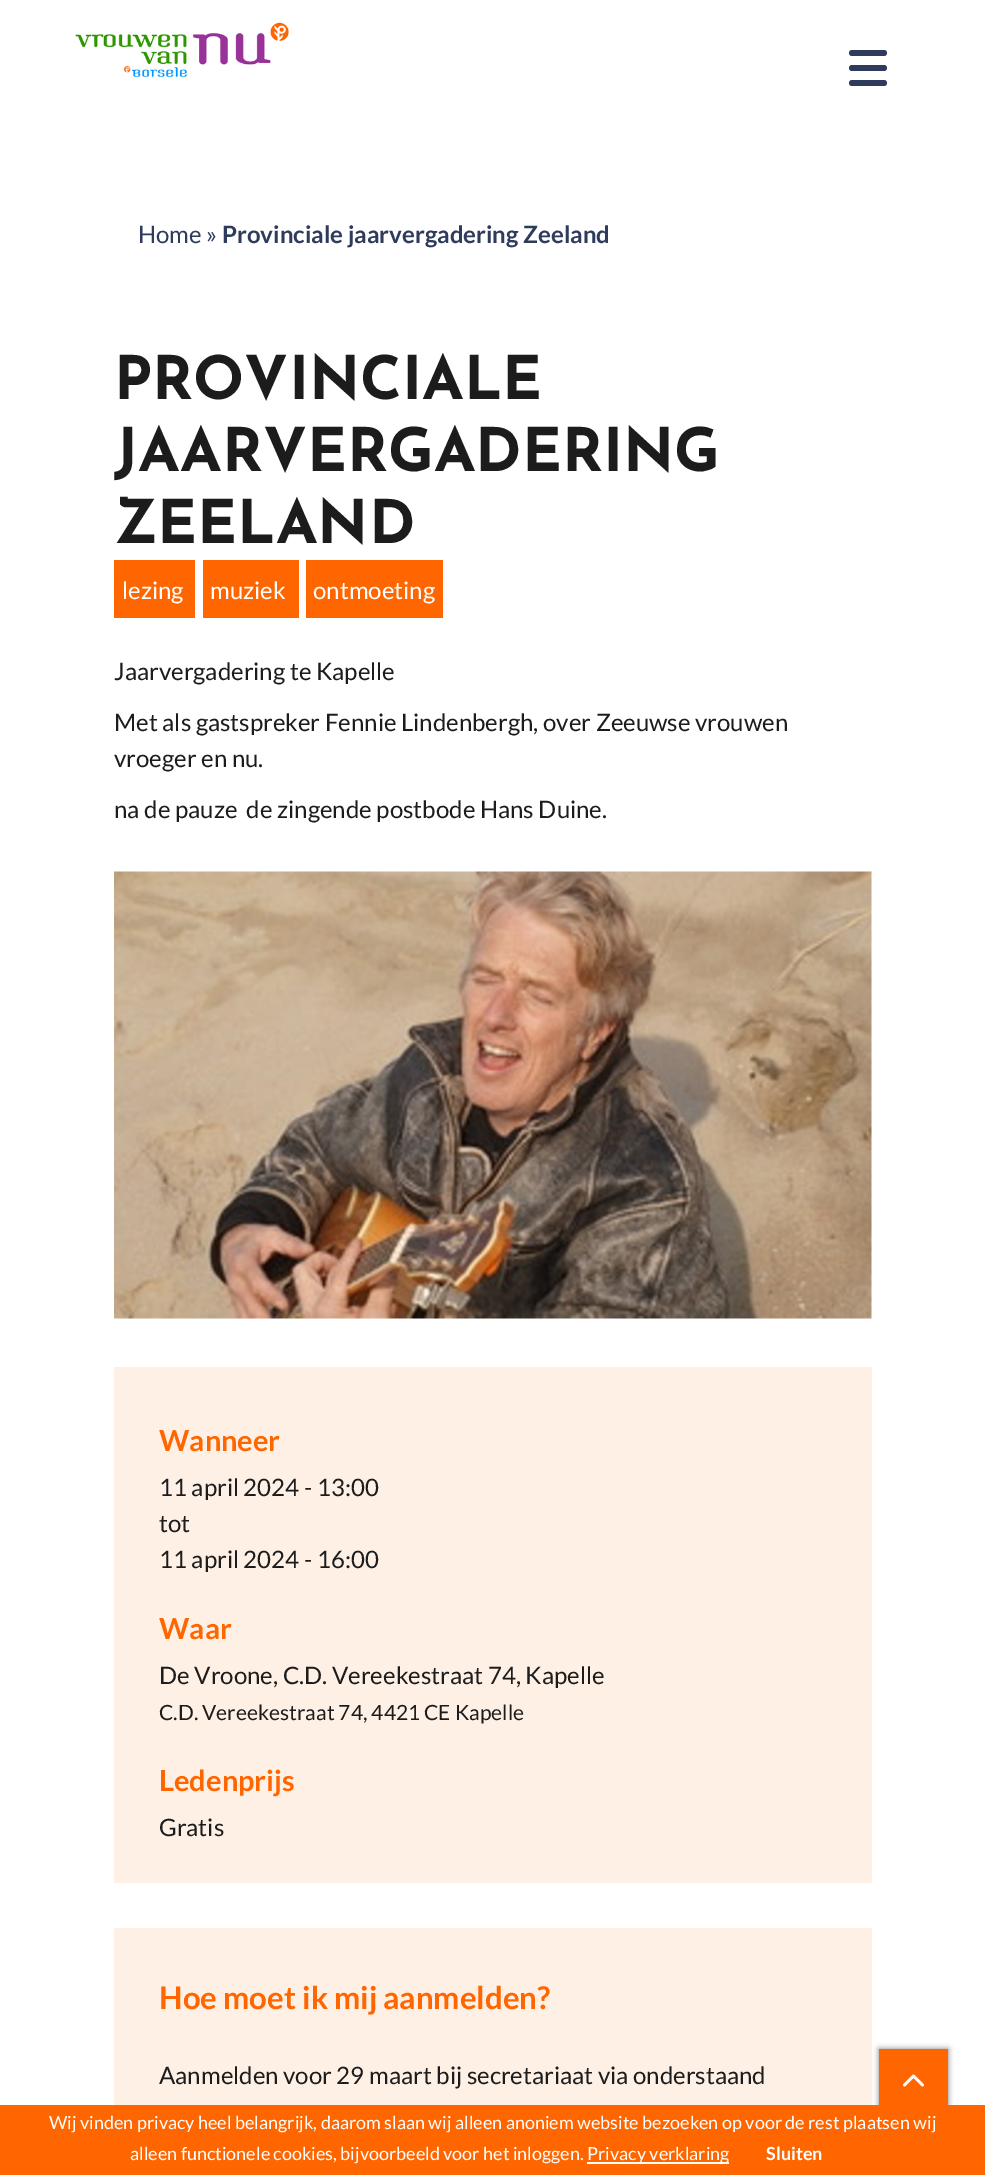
%!PS-Adobe-3.0
%%BoundingBox: 0 0 985 2175
%%LanguageLevel: 3
%%Pages: 1
%%EndComments
%%BeginProlog
/f { fill } bind def
/fn { [ exch dup neg 0 0 3 -1 roll 0 0 ] selectfont } def
/tx { moveto show } def
/bx { rectfill } def
/al { dup .setfillconstantalpha .setstrokeconstantalpha } def
/rr { 5 dict begin { /r /h /w /y /x } { exch def } forall
  x r add y moveto x w add y 2 copy h add r arct x w add y h add x 1 index r arct
  x y h add x y r arct x y 2 copy exch w add exch r arct closepath end } def
/sh { 12 dict begin { /a /b /q /h /w /y /x } { exch def } forall gsave /was 0 def
  9 -2 -9 { dup b mul 4 div /e exch def 1 sub .425 mul 2.718 exch exp 1 add a .99 .min exch div /now exch def
    1 1 now sub 1 was sub div sub al /was now def
    w h .min e 2 mul add 0 gt { x e sub y e sub w e 2 mul add h e 2 mul add
      q e add b .6 mul add w h .min 2 div e add .min 0 .max rr fill } if } for grestore end } def
/im { 5 dict begin { /h /w /y /x /name } { exch def } forall
  gsave x y translate w h scale
  w h 8 [w 0 0 h 0 0] name (r) file false 3 colorimage grestore end } def
%%EndProlog
%%BeginSetup
<< /PageSize [985 2175] /PageUsesTransparency true >> setpagedevice
%%EndSetup
%%Page: 1 1
0 .pushpdf14devicefilter
0 2175 translate 1 -1 scale
4 setmiterlimit
1 setgray
0 0 985 2175 bx
(image0.raw) 75 22 214 55 im
0.184 0.231 0.361 setrgbcolor
849 50 38 6 3 rr f
849 65 38 6 3 rr f
849 80 38 6 3 rr f
/Lato-Regular 24 fn
(Home ») 138 243 tx
/Lato-Bold 24 fn
(Provinciale jaarvergadering Zeeland) 222 243 tx
/JosefinSans-Bold 60 fn
0.11 setgray
(PROVINCIALE) 114 399 tx
(JAARVERGADERING) 114 471 tx
(ZEELAND) 114 543 tx
1 0.4 0 setrgbcolor
114 560 81 58 bx
/Lato-Regular 24 fn
1 setgray
(lezing) 122 599 tx
1 0.4 0 setrgbcolor
203 560 96 58 bx
1 setgray
(muziek) 210 599 tx
1 0.4 0 setrgbcolor
306 560 137 58 bx
1 setgray
(ontmoeting) 313 599 tx
0.11 setgray
(Jaarvergadering te Kapelle) 114 680 tx
(Met als gastspreker Fennie Lindenbergh, over Zeeuwse vrouwen) 114 731 tx
(vroeger en nu.) 114 767 tx
(na de pauze  de zingende postbode Hans Duine.) 114 818 tx
(image1.raw) 114 871 758 448 im
1 0.941 0.902 setrgbcolor
114 1367 758 516 bx
/Lato-Bold 29 fn
1 0.4 0 setrgbcolor
(Wanneer) 159 1451 tx
/Lato-Regular 24 fn
0.11 setgray
(11 april 2024 - 13:00) 159 1496 tx
(tot) 159 1532 tx
(11 april 2024 - 16:00) 159 1568 tx
/Lato-Bold 29 fn
1 0.4 0 setrgbcolor
(Waar) 159 1639 tx
/Lato-Regular 24 fn
0.11 setgray
(De Vroone, C.D. Vereekestraat 74, Kapelle) 159 1684 tx
/Lato-Regular 21 fn
(C.D. Vereekestraat 74, 4421 CE Kapelle) 159 1720 tx
/Lato-Bold 29 fn
1 0.4 0 setrgbcolor
(Ledenprijs) 159 1791 tx
/Lato-Regular 24 fn
0.11 setgray
(Gratis) 159 1836 tx
1 0.941 0.902 setrgbcolor
114 1928 758 177 bx
/Lato-Bold 31.25 fn
1 0.4 0 setrgbcolor
(Hoe moet ik mij aanmelden?) 159 2009 tx
/Lato-Regular 24 fn
0.11 setgray
(Aanmelden voor 29 maart bij secretariaat via onderstaand) 159 2084 tx
0 setgray
879 2049 69 66 0 3 0.5 sh
1 0.4 0 setrgbcolor
879 2049 69 56 bx
(image2.raw) 903 2074 21 13 im
0 2105 985 70 bx
/Lato-Regular 18 fn
1 setgray
(Wij vinden privacy heel belangrijk, daarom slaan wij alleen anoniem website bezoeken op voor de rest plaatsen wij) 49 2129 tx
(alleen functionele cookies, bijvoorbeeld voor het inloggen.) 130 2160 tx
587 2162 142 2 bx
(Privacy verklaring) 587 2160 tx
/Lato-Bold 18 fn
(Sluiten) 766 2160 tx
.poppdf14devicefilter showpage
%%EOF
